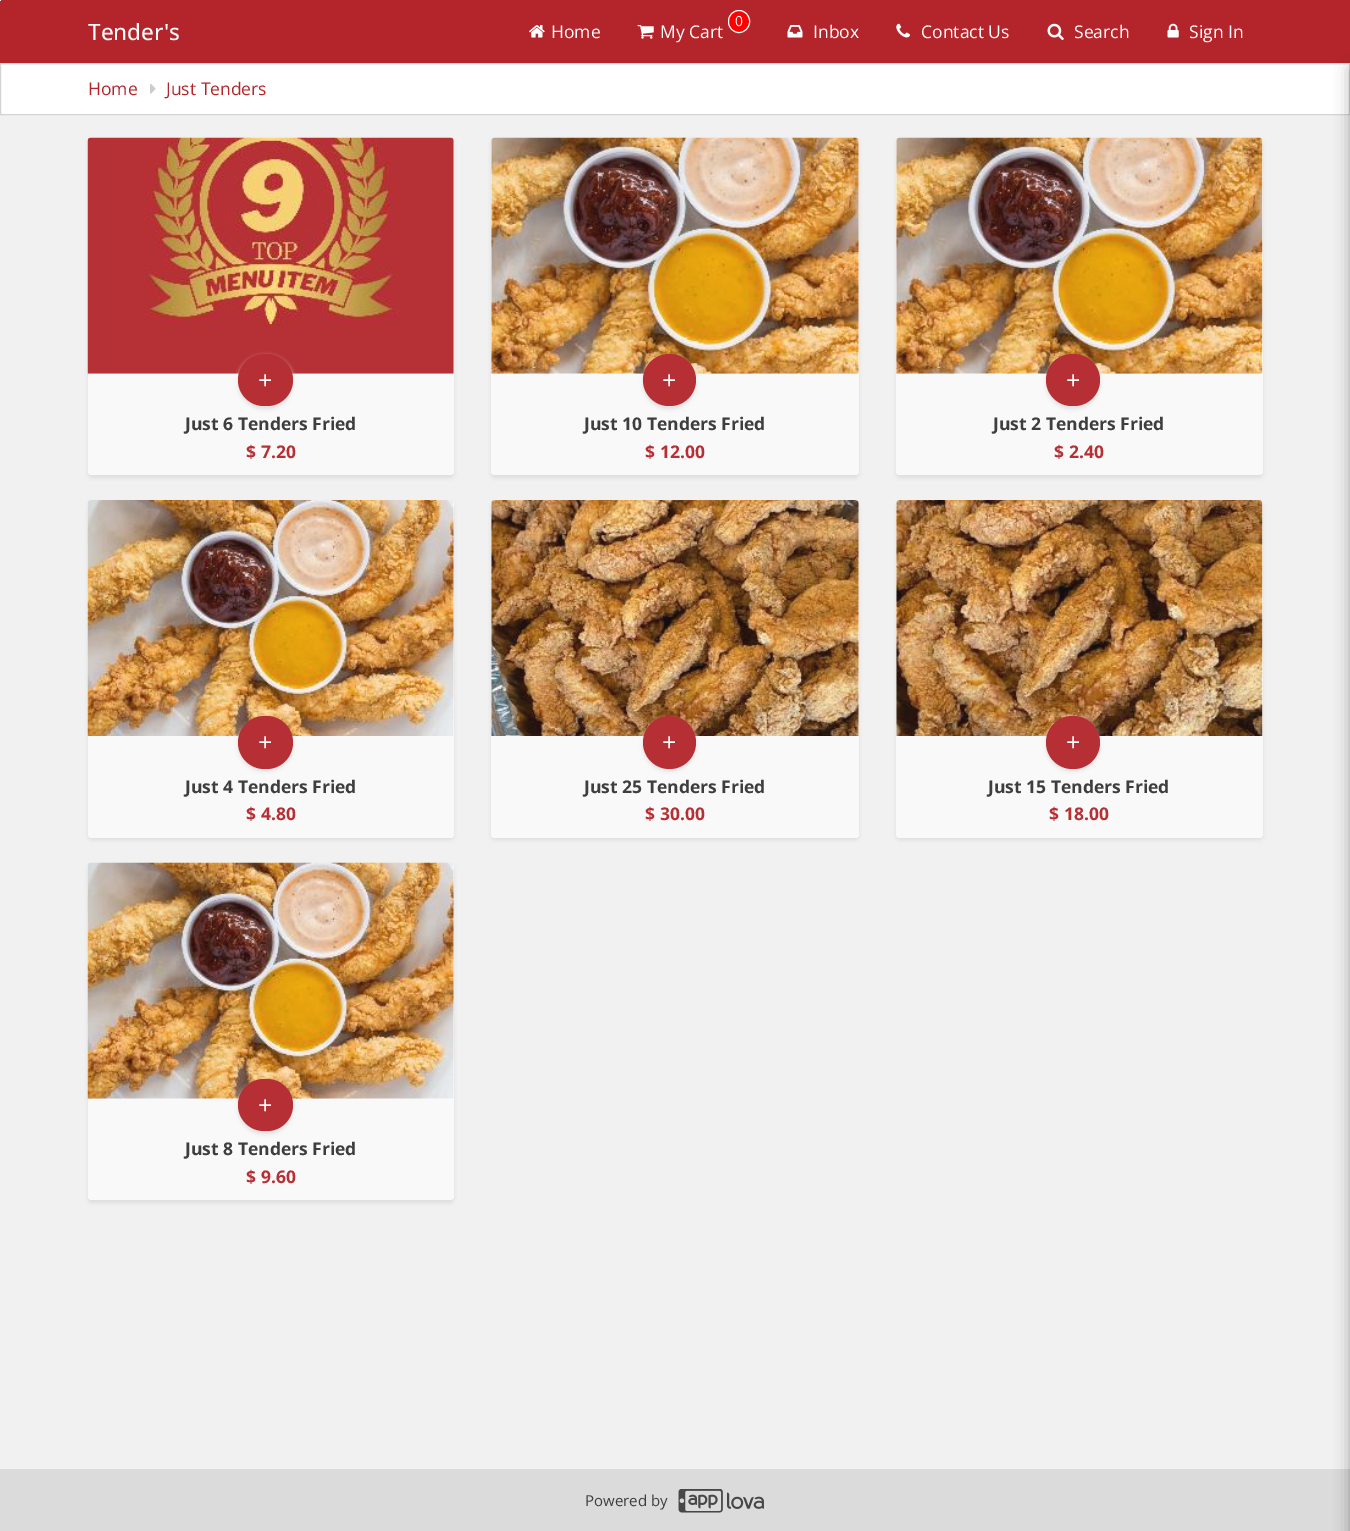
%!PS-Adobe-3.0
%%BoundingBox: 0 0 1350 1531
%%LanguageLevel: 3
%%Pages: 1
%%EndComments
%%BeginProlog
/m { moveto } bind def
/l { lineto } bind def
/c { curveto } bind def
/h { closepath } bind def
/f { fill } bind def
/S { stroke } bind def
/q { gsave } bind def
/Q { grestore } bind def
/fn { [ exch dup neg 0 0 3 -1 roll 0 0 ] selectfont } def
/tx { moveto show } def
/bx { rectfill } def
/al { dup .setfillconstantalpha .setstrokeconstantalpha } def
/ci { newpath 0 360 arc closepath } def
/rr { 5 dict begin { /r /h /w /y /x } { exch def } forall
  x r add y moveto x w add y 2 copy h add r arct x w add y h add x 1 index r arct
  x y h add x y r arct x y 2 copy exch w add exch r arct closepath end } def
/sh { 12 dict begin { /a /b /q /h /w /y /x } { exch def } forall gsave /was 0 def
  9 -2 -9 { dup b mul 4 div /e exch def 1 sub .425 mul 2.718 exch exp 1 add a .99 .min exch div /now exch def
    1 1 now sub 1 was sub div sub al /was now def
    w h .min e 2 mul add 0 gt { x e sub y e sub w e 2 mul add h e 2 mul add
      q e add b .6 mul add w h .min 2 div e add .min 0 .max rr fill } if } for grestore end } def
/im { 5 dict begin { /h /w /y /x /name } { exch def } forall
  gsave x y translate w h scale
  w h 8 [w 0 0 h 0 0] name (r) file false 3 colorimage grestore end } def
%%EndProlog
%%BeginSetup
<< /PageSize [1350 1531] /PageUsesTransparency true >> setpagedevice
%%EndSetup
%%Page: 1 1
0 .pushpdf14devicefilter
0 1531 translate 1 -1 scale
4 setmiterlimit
0.945 setgray
0 0 1350 1531 bx
0.702 0.145 0.169 setrgbcolor
0 0 1350 63 bx
1 setgray
0 0 1 1 bx
/OpenSans-Medium 22.5 fn
0.996 setgray
(Tender's) 88 40 tx
(image0.raw) 529 25 16 13 im
/OpenSans-Regular 17.5 fn
(Home) 551 38 tx
1 0 0 setrgbcolor
728.5 10.5 21 22 10.5 rr q f Q
1 setgray
S
/OpenSans-Regular 14 fn
0.996 setgray
(0) 735 26 tx
(image1.raw) 637 25 17 14 im
/OpenSans-Regular 17.5 fn
(My Cart) 660 38 tx
(image2.raw) 787 25 16 13 im
(Inbox) 813 38 tx
(image3.raw) 896 23 14 15 im
(Contact Us) 921 38 tx
(image4.raw) 1047 23 17 17 im
(Search) 1074 38 tx
(image5.raw) 1167 23 12 15 im
(Sign In) 1189 38 tx
1 setgray
0.5 63.5 m 1349.5 63.5 l 1349.5 114.5 l 0.5 114.5 l h q f Q
0.831 setgray
S
0.702 0.145 0.169 setrgbcolor
(Home) 88 95 tx
(image6.raw) 150 83 6 11 im
(Just Tenders) 166 95 tx
0.859 setgray
0 1469 1350 62 bx
0 setgray
1350 69 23 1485 0 7.5 0.32 sh
0.871 setgray
88 140 366 338 4 2 1 sh
0.996 setgray
88 138 366 337 4 rr f
(image7.raw) 87 137 367 237 im
0.976 setgray
88 374 m 454 374 l 454 471 l 454 473 452 475 450 475 c 92 475 l 90 475 88 473 88 471 c h f
0.871 setgray
238 356 55 53 26.5 2 1 sh
0.714 0.184 0.208 setrgbcolor
238 354 55 52 26 rr f
/OpenSans-Regular 25 fn
0.996 setgray
(+) 258 389 tx
/OpenSans-Bold 17.5 fn
0.243 setgray
(Just 6 Tenders Fried) 185 430 tx
0.714 0.184 0.208 setrgbcolor
($ 7.20) 246 458 tx
0.871 setgray
491 140 368 338 4 2 1 sh
0.996 setgray
491 138 368 337 4 rr f
(image8.raw) 491 137 368 237 im
0.976 setgray
491 374 m 859 374 l 859 471 l 859 473 857 475 855 475 c 495 475 l 493 475 491 473 491 471 c h f
0.871 setgray
643 356 53 53 26.5 2 1 sh
0.714 0.184 0.208 setrgbcolor
643 354 53 52 26 rr f
/OpenSans-Regular 25 fn
0.996 setgray
(+) 662 389 tx
/OpenSans-Bold 17.5 fn
0.243 setgray
(Just 10 Tenders Fried) 584 430 tx
0.714 0.184 0.208 setrgbcolor
($ 12.00) 645 458 tx
0.871 setgray
896 140 367 338 4 2 1 sh
0.996 setgray
896 138 367 337 4 rr f
(image9.raw) 896 137 367 237 im
0.976 setgray
896 374 m 1263 374 l 1263 471 l 1263 473 1261 475 1259 475 c 900 475 l 898 475 896 473 896 471 c h f
0.871 setgray
1046 356 54 53 26.5 2 1 sh
0.714 0.184 0.208 setrgbcolor
1046 354 54 52 26 rr f
/OpenSans-Regular 25 fn
0.996 setgray
(+) 1066 389 tx
/OpenSans-Bold 17.5 fn
0.243 setgray
(Just 2 Tenders Fried) 993 430 tx
0.714 0.184 0.208 setrgbcolor
($ 2.40) 1054 458 tx
0.871 setgray
88 503 366 337 4 2 1 sh
0.996 setgray
88 500 366 338 4 rr f
(image10.raw) 87 500 367 236 im
0.976 setgray
88 736 m 454 736 l 454 834 l 454 836 452 838 450 838 c 92 838 l 90 838 88 836 88 834 c h f
0.871 setgray
238 719 55 52 26 2 1 sh
0.714 0.184 0.208 setrgbcolor
238 716 55 53 26.5 rr f
/OpenSans-Regular 25 fn
0.996 setgray
(+) 258 751 tx
/OpenSans-Bold 17.5 fn
0.243 setgray
(Just 4 Tenders Fried) 185 793 tx
0.714 0.184 0.208 setrgbcolor
($ 4.80) 246 820 tx
0.871 setgray
491 503 368 337 4 2 1 sh
0.996 setgray
491 500 368 338 4 rr f
(image11.raw) 491 500 368 236 im
0.976 setgray
491 736 m 859 736 l 859 834 l 859 836 857 838 855 838 c 495 838 l 493 838 491 836 491 834 c h f
0.871 setgray
643 719 53 52 26 2 1 sh
0.714 0.184 0.208 setrgbcolor
669.5 742.5 26.5 ci f
/OpenSans-Regular 25 fn
0.996 setgray
(+) 662 751 tx
/OpenSans-Bold 17.5 fn
0.243 setgray
(Just 25 Tenders Fried) 584 793 tx
0.714 0.184 0.208 setrgbcolor
($ 30.00) 645 820 tx
0.871 setgray
896 503 367 337 4 2 1 sh
0.996 setgray
896 500 367 338 4 rr f
(image12.raw) 896 500 367 236 im
0.976 setgray
896 736 m 1263 736 l 1263 834 l 1263 836 1261 838 1259 838 c 900 838 l 898 838 896 836 896 834 c h f
0.871 setgray
1046 719 54 52 26 2 1 sh
0.714 0.184 0.208 setrgbcolor
1046 716 54 53 26.5 rr f
/OpenSans-Regular 25 fn
0.996 setgray
(+) 1066 751 tx
/OpenSans-Bold 17.5 fn
0.243 setgray
(Just 15 Tenders Fried) 988 793 tx
0.714 0.184 0.208 setrgbcolor
($ 18.00) 1049 820 tx
0.871 setgray
88 865 366 338 4 2 1 sh
0.996 setgray
88 863 366 337 4 rr f
(image13.raw) 87 862 367 237 im
0.976 setgray
88 1099 m 454 1099 l 454 1196 l 454 1198 452 1200 450 1200 c 92 1200 l 90 1200 88 1198 88 1196 c h f
0.871 setgray
238 1081 55 53 26.5 2 1 sh
0.714 0.184 0.208 setrgbcolor
238 1079 55 52 26 rr f
/OpenSans-Regular 25 fn
0.996 setgray
(+) 258 1114 tx
/OpenSans-Bold 17.5 fn
0.243 setgray
(Just 8 Tenders Fried) 185 1155 tx
0.714 0.184 0.208 setrgbcolor
($ 9.60) 246 1183 tx
/OpenSans-Regular 15 fn
0.243 setgray
(Powered by) 585 1506 tx
(image14.raw) 678 1489 86 24 im
.poppdf14devicefilter showpage
%%EOF
